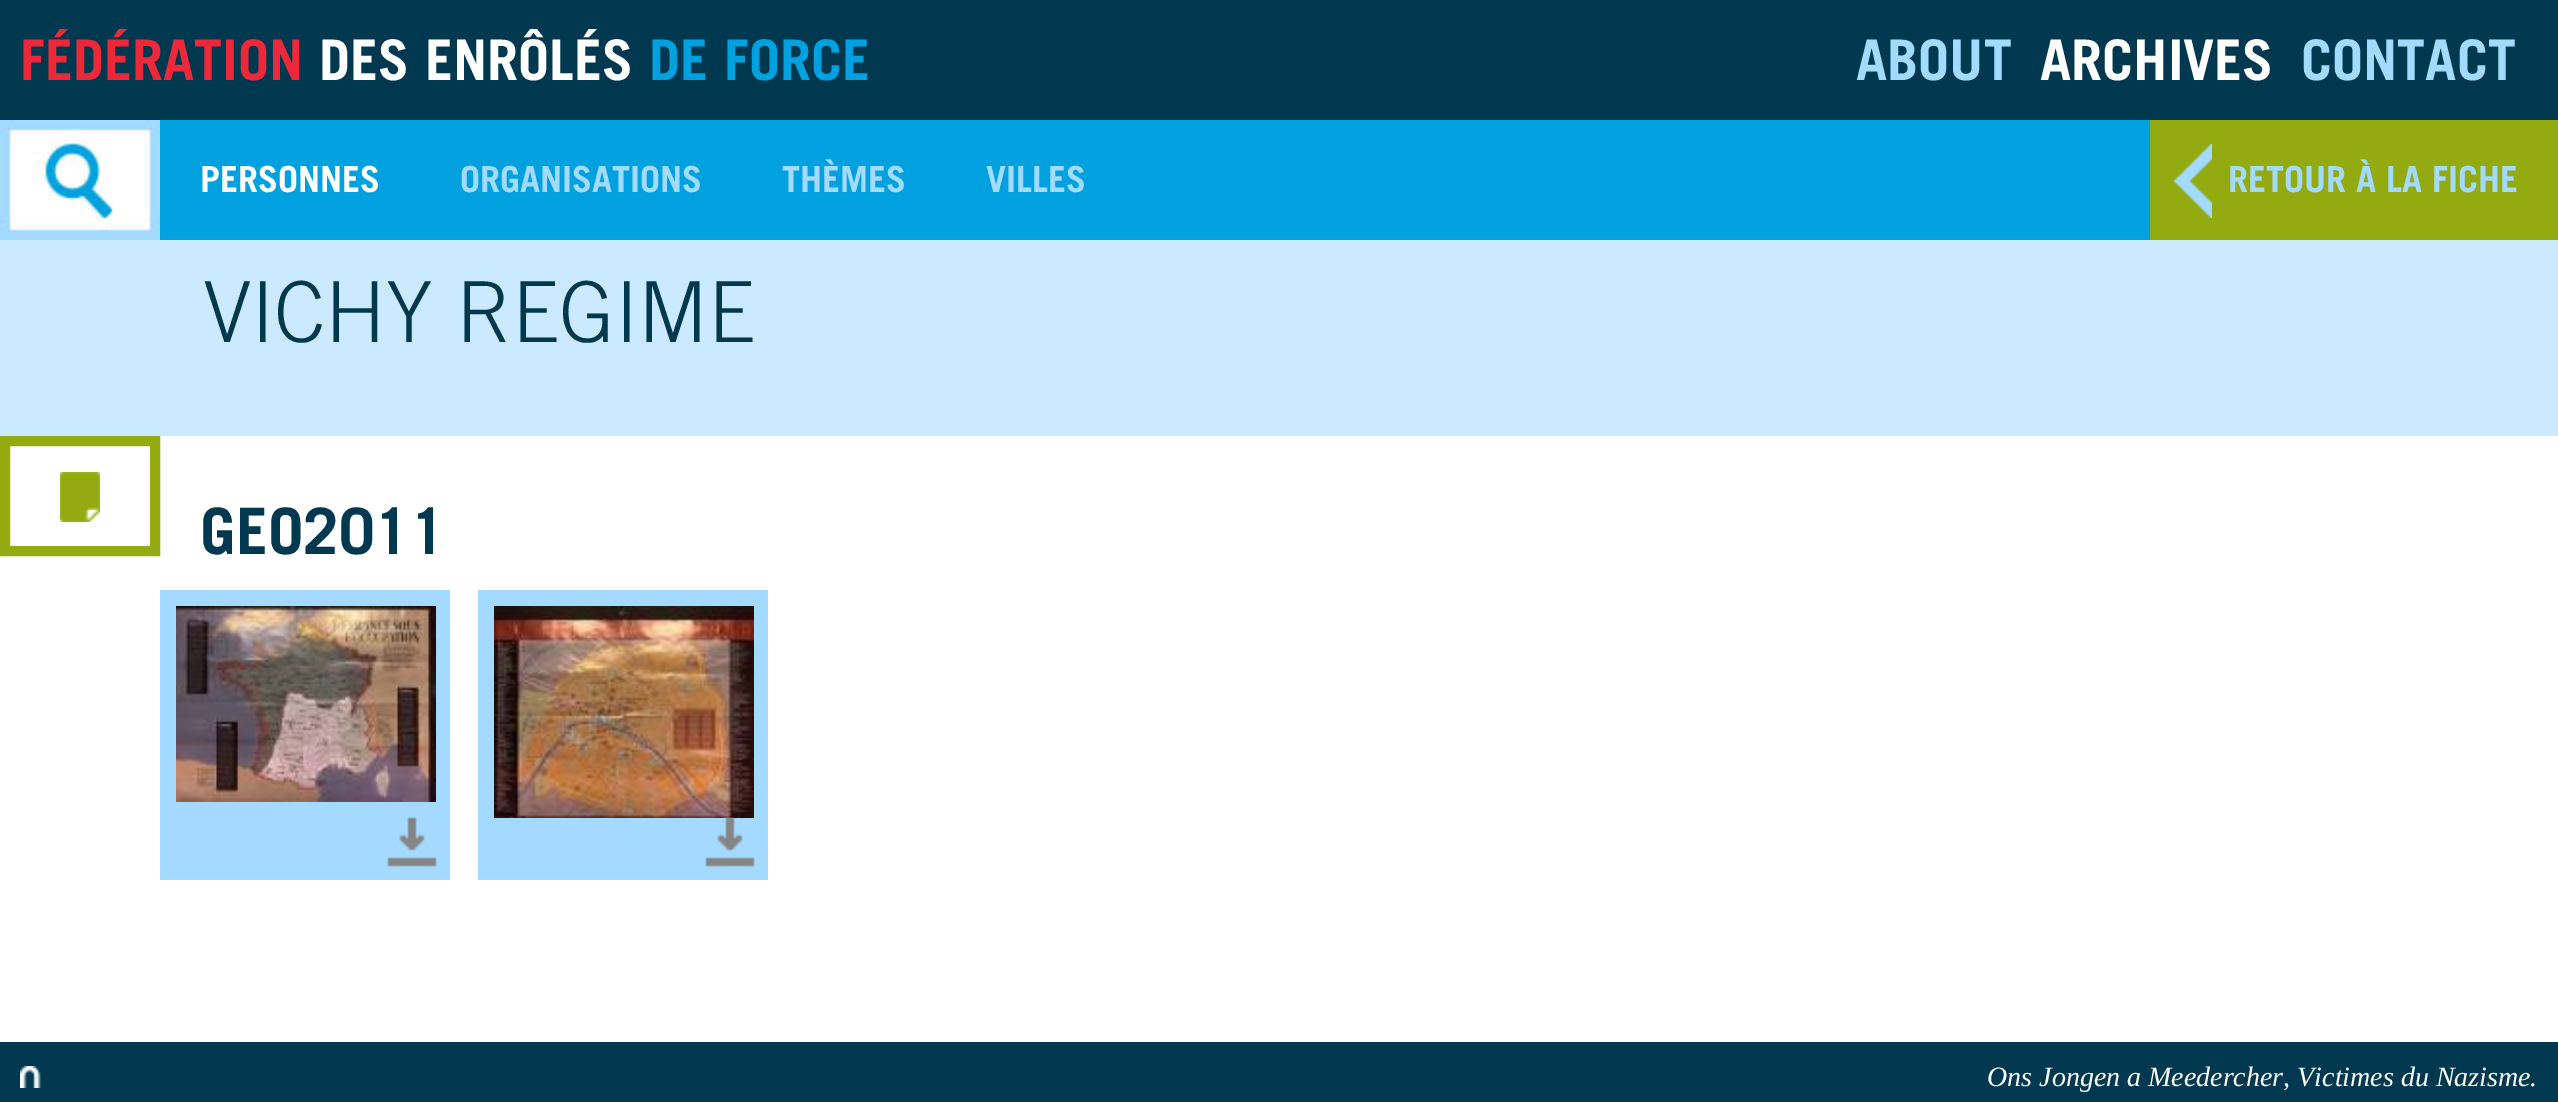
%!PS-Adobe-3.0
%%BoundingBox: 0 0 2558 1102
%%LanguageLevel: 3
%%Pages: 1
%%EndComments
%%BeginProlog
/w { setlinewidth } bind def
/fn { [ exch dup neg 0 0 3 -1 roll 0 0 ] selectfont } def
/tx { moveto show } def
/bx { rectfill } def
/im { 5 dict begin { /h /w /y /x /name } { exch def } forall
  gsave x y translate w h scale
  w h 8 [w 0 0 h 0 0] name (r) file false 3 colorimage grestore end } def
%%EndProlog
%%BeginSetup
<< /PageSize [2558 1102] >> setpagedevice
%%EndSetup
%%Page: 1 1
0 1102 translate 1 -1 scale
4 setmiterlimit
1 setgray
0 0 2558 1102 bx
0 0.224 0.31 setrgbcolor
0 0 2558 120 bx
/TradeGothic-Bold 56 fn
0.929 0.157 0.224 setrgbcolor
(FÉDÉRATION) 20 80 tx
1 setgray
(DES ENRÔLÉS) 319 80 tx
0.004 0.631 0.875 setrgbcolor
(DE FORCE) 649 80 tx
0.639 0.855 1 setrgbcolor
(ABOUT) 1856 80 tx
1 setgray
(ARCHIVES) 2040 80 tx
0.639 0.855 1 setrgbcolor
(CONTACT) 2301 80 tx
(image0.raw) 0 120 160 120 im
0 0.631 0.871 setrgbcolor
160 120 1990 120 bx
/TradeGothic-Bold 36 fn
1 setgray
(PERSONNES) 200 192 tx
0.639 0.855 1 setrgbcolor
(ORGANISATIONS) 460 192 tx
(THÈMES) 782 192 tx
(VILLES) 986 192 tx
0.576 0.671 0.063 setrgbcolor
2150 120 408 120 bx
(image1.raw) 2174 144 38 74 im
0.639 0.855 1 setrgbcolor
(RETOUR À LA FICHE) 2228 192 tx
0.796 0.918 1 setrgbcolor
0 240 2558 196 bx
/TradeGothic-Light 84 fn
0 0.224 0.31 setrgbcolor
(VICHY REGIME) 204 342 tx
(image2.raw) 60 472 40 50 im
0.576 0.671 0.063 setrgbcolor
10 w
5 441 150 110 rectstroke
/TradeGothic-Bold 64 fn
0 0.224 0.31 setrgbcolor
(GEO2011) 200 554 tx
0.643 0.855 1 setrgbcolor
160 590 290 290 bx
(image3.raw) 176 606 260 196 im
(image4.raw) 387 817 50 50 im
478 590 290 290 bx
(image5.raw) 494 606 260 212 im
(image6.raw) 705 817 50 50 im
0 0.224 0.31 setrgbcolor
0 1042 2558 60 bx
(image7.raw) 20 1066 21 22 im
/LiberationSerif-Italic 28 fn
1 setgray
(Ons Jongen a Meedercher, Victimes du Nazisme.) 1987 1086 tx
showpage
%%EOF
